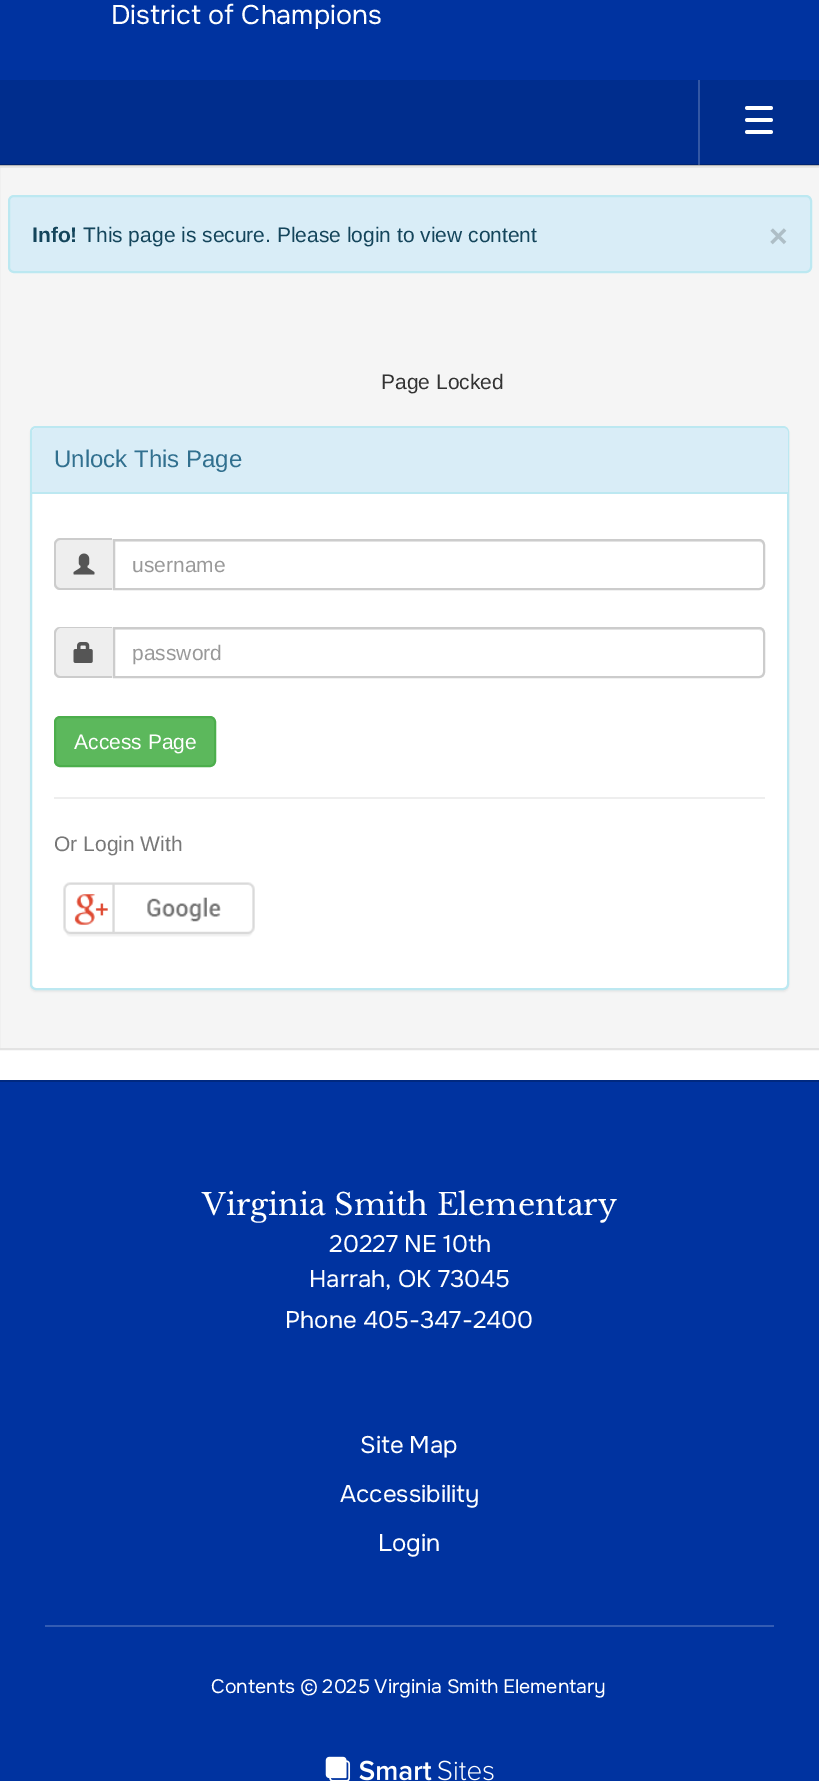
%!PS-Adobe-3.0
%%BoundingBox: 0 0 819 1781
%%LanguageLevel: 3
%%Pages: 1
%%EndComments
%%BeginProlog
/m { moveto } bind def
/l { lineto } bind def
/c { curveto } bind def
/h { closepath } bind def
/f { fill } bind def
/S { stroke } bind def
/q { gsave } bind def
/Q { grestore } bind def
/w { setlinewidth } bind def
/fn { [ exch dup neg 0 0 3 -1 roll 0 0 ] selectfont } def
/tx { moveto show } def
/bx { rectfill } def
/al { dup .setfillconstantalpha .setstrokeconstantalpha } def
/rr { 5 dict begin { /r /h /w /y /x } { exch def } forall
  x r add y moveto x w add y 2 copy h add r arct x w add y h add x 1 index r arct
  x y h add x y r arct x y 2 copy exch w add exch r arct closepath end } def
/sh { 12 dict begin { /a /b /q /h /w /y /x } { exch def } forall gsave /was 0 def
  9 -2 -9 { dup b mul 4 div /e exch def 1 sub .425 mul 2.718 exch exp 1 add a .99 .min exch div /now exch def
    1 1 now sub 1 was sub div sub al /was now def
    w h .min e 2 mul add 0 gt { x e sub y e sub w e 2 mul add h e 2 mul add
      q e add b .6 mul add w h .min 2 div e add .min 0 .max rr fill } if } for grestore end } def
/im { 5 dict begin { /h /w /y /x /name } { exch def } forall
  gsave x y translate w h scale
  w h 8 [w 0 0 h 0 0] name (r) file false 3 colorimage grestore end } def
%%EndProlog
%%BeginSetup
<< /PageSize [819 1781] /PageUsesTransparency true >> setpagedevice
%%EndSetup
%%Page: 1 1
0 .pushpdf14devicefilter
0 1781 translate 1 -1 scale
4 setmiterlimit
1 setgray
0 0 819 1781 bx
0 0.2 0.627 setrgbcolor
0 0 819 80 bx
/Onest-Regular 27 fn
1 setgray
(District of Champions) 111 24 tx
0 0.176 0.553 setrgbcolor
0 80 819 85 bx
0.961 setgray
0 168 819 880 bx
0.914 setgray
-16 168 m 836 168 l 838 168 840 170 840 172 c 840 169 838 167 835 167 c -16 167 l -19 167 -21 169 -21 172 c -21 170 -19 168 -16 168 c h f
0.89 setgray
2 w
-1 166 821 883 rectstroke
0.2 al
0 setgray
0 164 819 2 bx
1 setgray
698 80 2 85 bx
1 al
3.8 w
1 setlinecap
747 108 m 771 108 l 747 120 m 771 120 l 747 132 m 771 132 l S
0.851 0.929 0.969 setrgbcolor
9 196 802 76 5 rr q f Q
0.737 0.91 0.945 setrgbcolor
2 w
0 setlinecap
S
/LiberationSans-Bold 21 fn
0.078 0.271 0.357 setrgbcolor
(Info!) 32 242 tx
/LiberationSans-Regular 21 fn
(This page is secure. Please login to view content) 83 242 tx
/LiberationSans-Bold 32 fn
0.682 0.745 0.776 setrgbcolor
(×) 769 247 tx
/LiberationSans-Regular 21 fn
0.2 setgray
(Page Locked) 381 389 tx
0 setgray
30 428 759 564 6 1 0.05 sh
1 setgray
31 427 757 562 5 rr q f Q
0.737 0.91 0.945 setrgbcolor
S
0.851 0.929 0.969 setrgbcolor
37 428 m 783 428 l 786 428 788 430 788 433 c 788 494 l 32 494 l 32 433 l 32 430 34 428 37 428 c h f
0.737 0.91 0.945 setrgbcolor
32 492 756 2 bx
/LiberationSans-Regular 24 fn
0.192 0.439 0.561 setrgbcolor
(Unlock This Page) 54 467 tx
0.933 setgray
60 539 m 113 539 l 113 590 l 60 590 l 56.5 590 54 587.5 54 584 c 54 545 l 54 541.5 56.5 539 60 539 c h f
0.8 setgray
60 538 m 112 538 l 112 590 l 60 590 l 57 590 54 587 54 584 c 54 544 l 54 541 57 538 60 538 c h 60 540 m 112 540 l 112 588 l 60 588 l 58 588 56 586 56 584 c 56 544 l 56 542 58 540 60 540 c h eofill
(image0.raw) 73 553 22 22 im
0.925 setgray
114 542 m 759 542 l 761 542 764 544 764 546 c 764 543 762 540 759 540 c 114 540 l h f
0.8 setgray
114 540 m 759 540 l 762 540 764 542 764 545 c 764 584 l 764 587 762 589 759 589 c 114 589 l h S
/LiberationSans-Regular 21 fn
0.6 setgray
(username) 132 572 tx
0.933 setgray
60 627 m 113 627 l 113 678 l 60 678 l 56.5 678 54 675.5 54 672 c 54 633 l 54 629.5 56.5 627 60 627 c h f
0.8 setgray
60 627 m 112 627 l 112 678 l 60 678 l 57 678 54 675 54 672 c 54 633 l 54 630 57 627 60 627 c h 60 628 m 112 628 l 112 676 l 60 676 l 58 676 56 674 56 672 c 56 633 l 56 631 58 628 60 628 c h eofill
(image1.raw) 73 642 20 21 im
0.925 setgray
114 630 m 759 630 l 761 630 764 632 764 634 c 764 631 762 629 759 629 c 114 629 l h f
0.8 setgray
114 628 m 759 628 l 762 628 764 630 764 633 c 764 672 l 764 675 762 677 759 677 c 114 677 l h S
0.6 setgray
(password) 132 660 tx
0.361 0.722 0.361 setrgbcolor
55 717 160 49 5 rr q f Q
0.298 0.682 0.298 setrgbcolor
S
1 setgray
(Access Page) 74 749 tx
0.933 setgray
54 797 711 2 bx
0.467 setgray
(Or Login With) 54 851 tx
(image2.raw) 63 882 192 55 im
0 0.161 0.502 setrgbcolor
0 1080 819 2 bx
0 0.2 0.627 setrgbcolor
0 1082 819 699 bx
/LibreBaskerville-Regular 30 fn
1 setgray
(Virginia Smith Elementary) 202 1215 tx
/Onest-Regular 24 fn
(20227 NE 10th) 329 1252 tx
(Harrah, OK 73045) 309 1287 tx
(Phone 405-347-2400) 285 1328 tx
360 1453 m -1 0 32 (Site Map) widthshow
(Accessibility) 340 1502 tx
(Login) 378 1551 tx
0.2 0.361 0.702 setrgbcolor
45 1625 729 2 bx
/Onest-Regular 19.5 fn
1 setgray
211 1693 m -0.5 0 32 (Contents © 2025 Virginia Smith Elementary) widthshow
(image3.raw) 325 1756 169 25 im
.poppdf14devicefilter showpage
%%EOF
